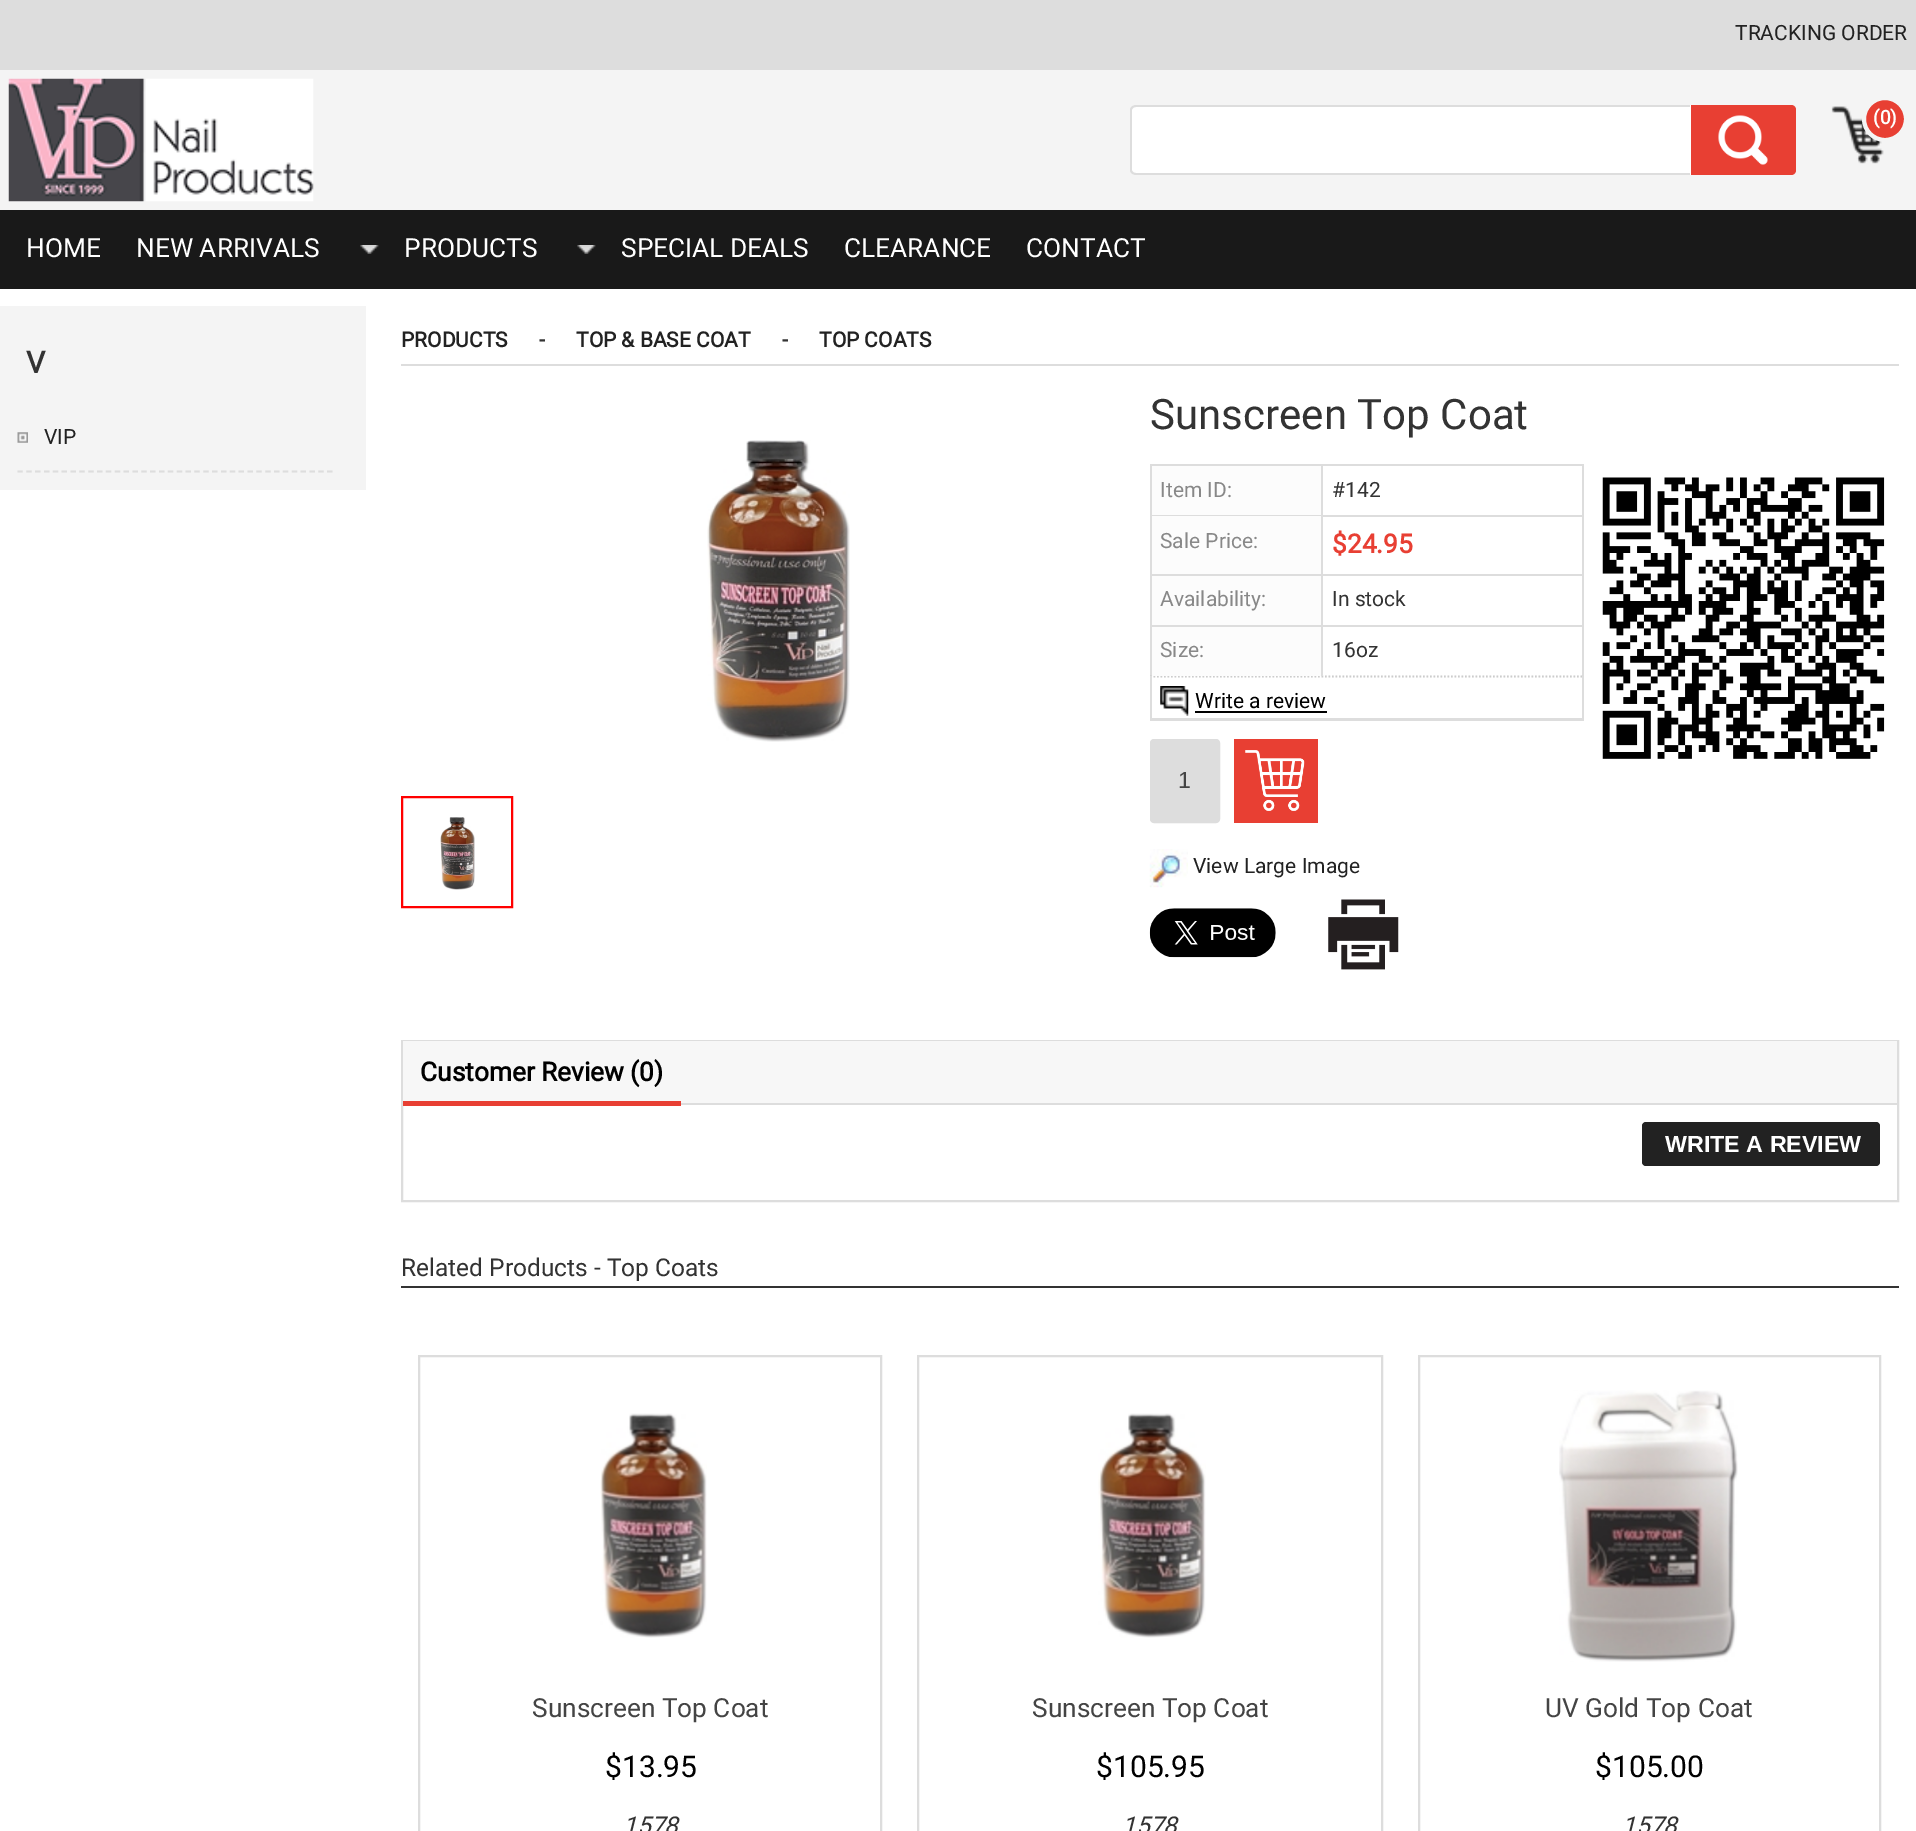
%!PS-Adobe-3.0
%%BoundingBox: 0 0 1916 1831
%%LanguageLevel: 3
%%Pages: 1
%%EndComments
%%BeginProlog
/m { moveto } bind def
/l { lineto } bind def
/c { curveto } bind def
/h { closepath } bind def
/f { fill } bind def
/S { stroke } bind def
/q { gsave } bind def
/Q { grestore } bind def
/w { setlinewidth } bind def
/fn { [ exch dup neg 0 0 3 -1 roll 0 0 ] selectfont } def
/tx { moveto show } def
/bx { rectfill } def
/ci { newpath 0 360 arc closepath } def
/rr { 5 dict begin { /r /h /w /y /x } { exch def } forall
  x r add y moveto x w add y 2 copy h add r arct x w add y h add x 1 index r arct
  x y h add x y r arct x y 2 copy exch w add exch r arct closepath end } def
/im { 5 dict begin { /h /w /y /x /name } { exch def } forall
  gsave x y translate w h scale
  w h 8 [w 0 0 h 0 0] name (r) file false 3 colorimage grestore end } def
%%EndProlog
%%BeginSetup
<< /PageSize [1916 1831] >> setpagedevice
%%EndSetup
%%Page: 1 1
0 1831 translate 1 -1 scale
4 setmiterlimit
1 setgray
0 0 1916 1831 bx
0.867 setgray
0 0 1916 70 bx
/Roboto-Regular 21 fn
0.133 setgray
(TRACKING ORDER) 1735 40 tx
0.957 setgray
0 70 1916 140 bx
(image0.raw) 8 78 306 124 im
1 setgray
1136 105 m 1691 105 l 1691 175 l 1136 175 l 1133 175 1131 173 1131 170 c 1131 110 l 1131 107 1133 105 1136 105 c h f
0.867 setgray
1136 105 m 1690 105 l 1690 175 l 1136 175 l 1133 175 1130 173 1130 170 c 1130 110 l 1130 107 1133 105 1136 105 c h 1136 107 m 1690 107 l 1690 173 l 1136 173 l 1134 173 1132 172 1132 170 c 1132 110 l 1132 108 1134 107 1136 107 c h eofill
0.91 0.247 0.2 setrgbcolor
1691 105 m 1791 105 l 1794 105 1796 107 1796 110 c 1796 170 l 1796 173 1794 175 1791 175 c 1691 175 l h f
(image1.raw) 1718 115 50 50 im
(image2.raw) 1831 106 53 58 im
1885 119 21 ci q f Q
0.957 setgray
4 w
S
/Roboto-Bold 19 fn
1 setgray
(\(0\)) 1873 124 tx
0.098 setgray
0 210 1916 79 bx
/Roboto-Regular 26.25 fn
1 setgray
(HOME) 26 257 tx
(image3.raw) 360 245 19 9 im
(NEW ARRIVALS) 136 257 tx
(image4.raw) 577 245 19 9 im
(PRODUCTS) 404 257 tx
(SPECIAL DEALS) 621 257 tx
(CLEARANCE) 844 257 tx
(CONTACT) 1026 257 tx
0.957 setgray
0 306 366 184 bx
/Roboto-Bold 30 fn
0.2 setgray
(V) 26 373 tx
(image5.raw) 17 432 11 11 im
0.867 setgray
1.8 w
[5.25 3.6] 0 setdash
17.5 471.5 m 332.5 471.5 l S
/Roboto-Regular 21 fn
0.133 setgray
(VIP) 44 444 tx
0.867 setgray
401 364 1498 2 bx
/Roboto-Bold 21 fn
0.133 setgray
(PRODUCTS) 401 347 tx
0.2 setgray
(-) 539 347 tx
0.133 setgray
(TOP & BASE COAT) 576 347 tx
0.2 setgray
(-) 782 347 tx
0.133 setgray
(TOP COATS) 819 347 tx
(image6.raw) 707 440 143 302 im
1 0 0 setrgbcolor
2 w
[] 0 setdash
402 797 110 110 rectstroke
(image7.raw) 440 817 35 73 im
/Roboto-Regular 42 fn
0.2 setgray
(Sunscreen Top Coat) 1150 429 tx
0.867 setgray
1150 464 434 2 bx
1582 464 2 51 bx
1150 464 2 51 bx
0.988 setgray
1152 466 169 49 bx
0.867 setgray
1321 466 2 49 bx
/Roboto-Regular 21 fn
0.533 setgray
(Item ID:) 1160 497 tx
0.2 setgray
(#142) 1332 497 tx
0.867 setgray
1150 515 434 2 bx
1582 515 2 59 bx
1150 515 2 59 bx
0.988 setgray
1152 516 169 58 bx
0.867 setgray
1321 516 2 58 bx
0.533 setgray
(Sale Price:) 1160 548 tx
/Roboto-Bold 26.25 fn
0.91 0.247 0.2 setrgbcolor
($24.95) 1332 553 tx
0.867 setgray
1150 574 434 2 bx
1582 574 2 51 bx
1150 574 2 51 bx
0.988 setgray
1152 576 169 49 bx
0.867 setgray
1321 576 2 49 bx
/Roboto-Regular 21 fn
0.533 setgray
(Availability:) 1160 606 tx
0.2 setgray
(In stock) 1332 606 tx
0.867 setgray
1150 625 434 2 bx
1582 625 2 51 bx
1150 625 2 51 bx
0.8 setgray
1.8 w
[1.75 1.75] 0 setdash
1150 676.5 m 1584 676.5 l S
0.988 setgray
1152 627 169 49 bx
0.867 setgray
1321 627 2 49 bx
0.533 setgray
(Size:) 1160 657 tx
0.2 setgray
(16oz) 1332 657 tx
0.867 setgray
1582 676 2 42 bx
1150 676 2 42 bx
(image8.raw) 1160 686 29 30 im
0 setgray
(Write a review) 1195 708 tx
1195 711 132 2 bx
0.867 setgray
1150 718 434 3 bx
(image9.raw) 1602 477 283 282 im
1151 740 68 82 3 rr q f Q
2 w
[] 0 setdash
S
/LiberationSans-Regular 23.25 fn
0.267 setgray
(1) 1178 788 tx
0.91 0.247 0.2 setrgbcolor
1234 739 84 84 bx
(image10.raw) 1245 750 60 61 im
(image11.raw) 1149 849 39 39 im
/Roboto-Regular 21 fn
0.133 setgray
(View Large Image) 1193 873 tx
(image12.raw) 1149 908 127 50 im
(image13.raw) 1328 899 71 71 im
0.867 setgray
402 1041 1496 160 rectstroke
0.969 setgray
681 1041 1216 62 bx
0.867 setgray
681 1103 1216 2 bx
0.969 setgray
403 1041 278 60 bx
0.91 0.247 0.2 setrgbcolor
403 1101 278 5 bx
/Roboto-Bold 26.25 fn
0 setgray
(Customer Review \(0\)) 420 1081 tx
0.133 setgray
1642 1122 238 44 4 rr f
/LiberationSans-Bold 23.25 fn
1 setgray
(WRITE A REVIEW) 1665 1152 tx
0.2 setgray
401 1286 1498 2 bx
/Roboto-Regular 24.5 fn
(Related Products - Top Coats) 401 1276 tx
0.867 setgray
419 1356 462 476 rectstroke
(image14.raw) 600 1413 107 225 im
/Roboto-Regular 26.25 fn
0.267 setgray
(Sunscreen Top Coat) 532 1717 tx
/Roboto-Regular 30 fn
0 setgray
($13.95) 605 1777 tx
/Roboto-Italic 24.5 fn
0.2 setgray
(1578) 623 1834 tx
0.867 setgray
918 1356 464 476 rectstroke
(image15.raw) 1098 1413 108 225 im
/Roboto-Regular 26.25 fn
0.267 setgray
(Sunscreen Top Coat) 1032 1717 tx
/Roboto-Regular 30 fn
0 setgray
($105.95) 1096 1777 tx
/Roboto-Italic 24.5 fn
0.2 setgray
(1578) 1122 1834 tx
0.867 setgray
1419 1356 461 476 rectstroke
(image16.raw) 1559 1390 179 272 im
/Roboto-Regular 26.25 fn
0.267 setgray
(UV Gold Top Coat) 1545 1717 tx
/Roboto-Regular 30 fn
0 setgray
($105.00) 1595 1777 tx
/Roboto-Italic 24.5 fn
0.2 setgray
(1578) 1622 1834 tx
showpage
%%EOF
